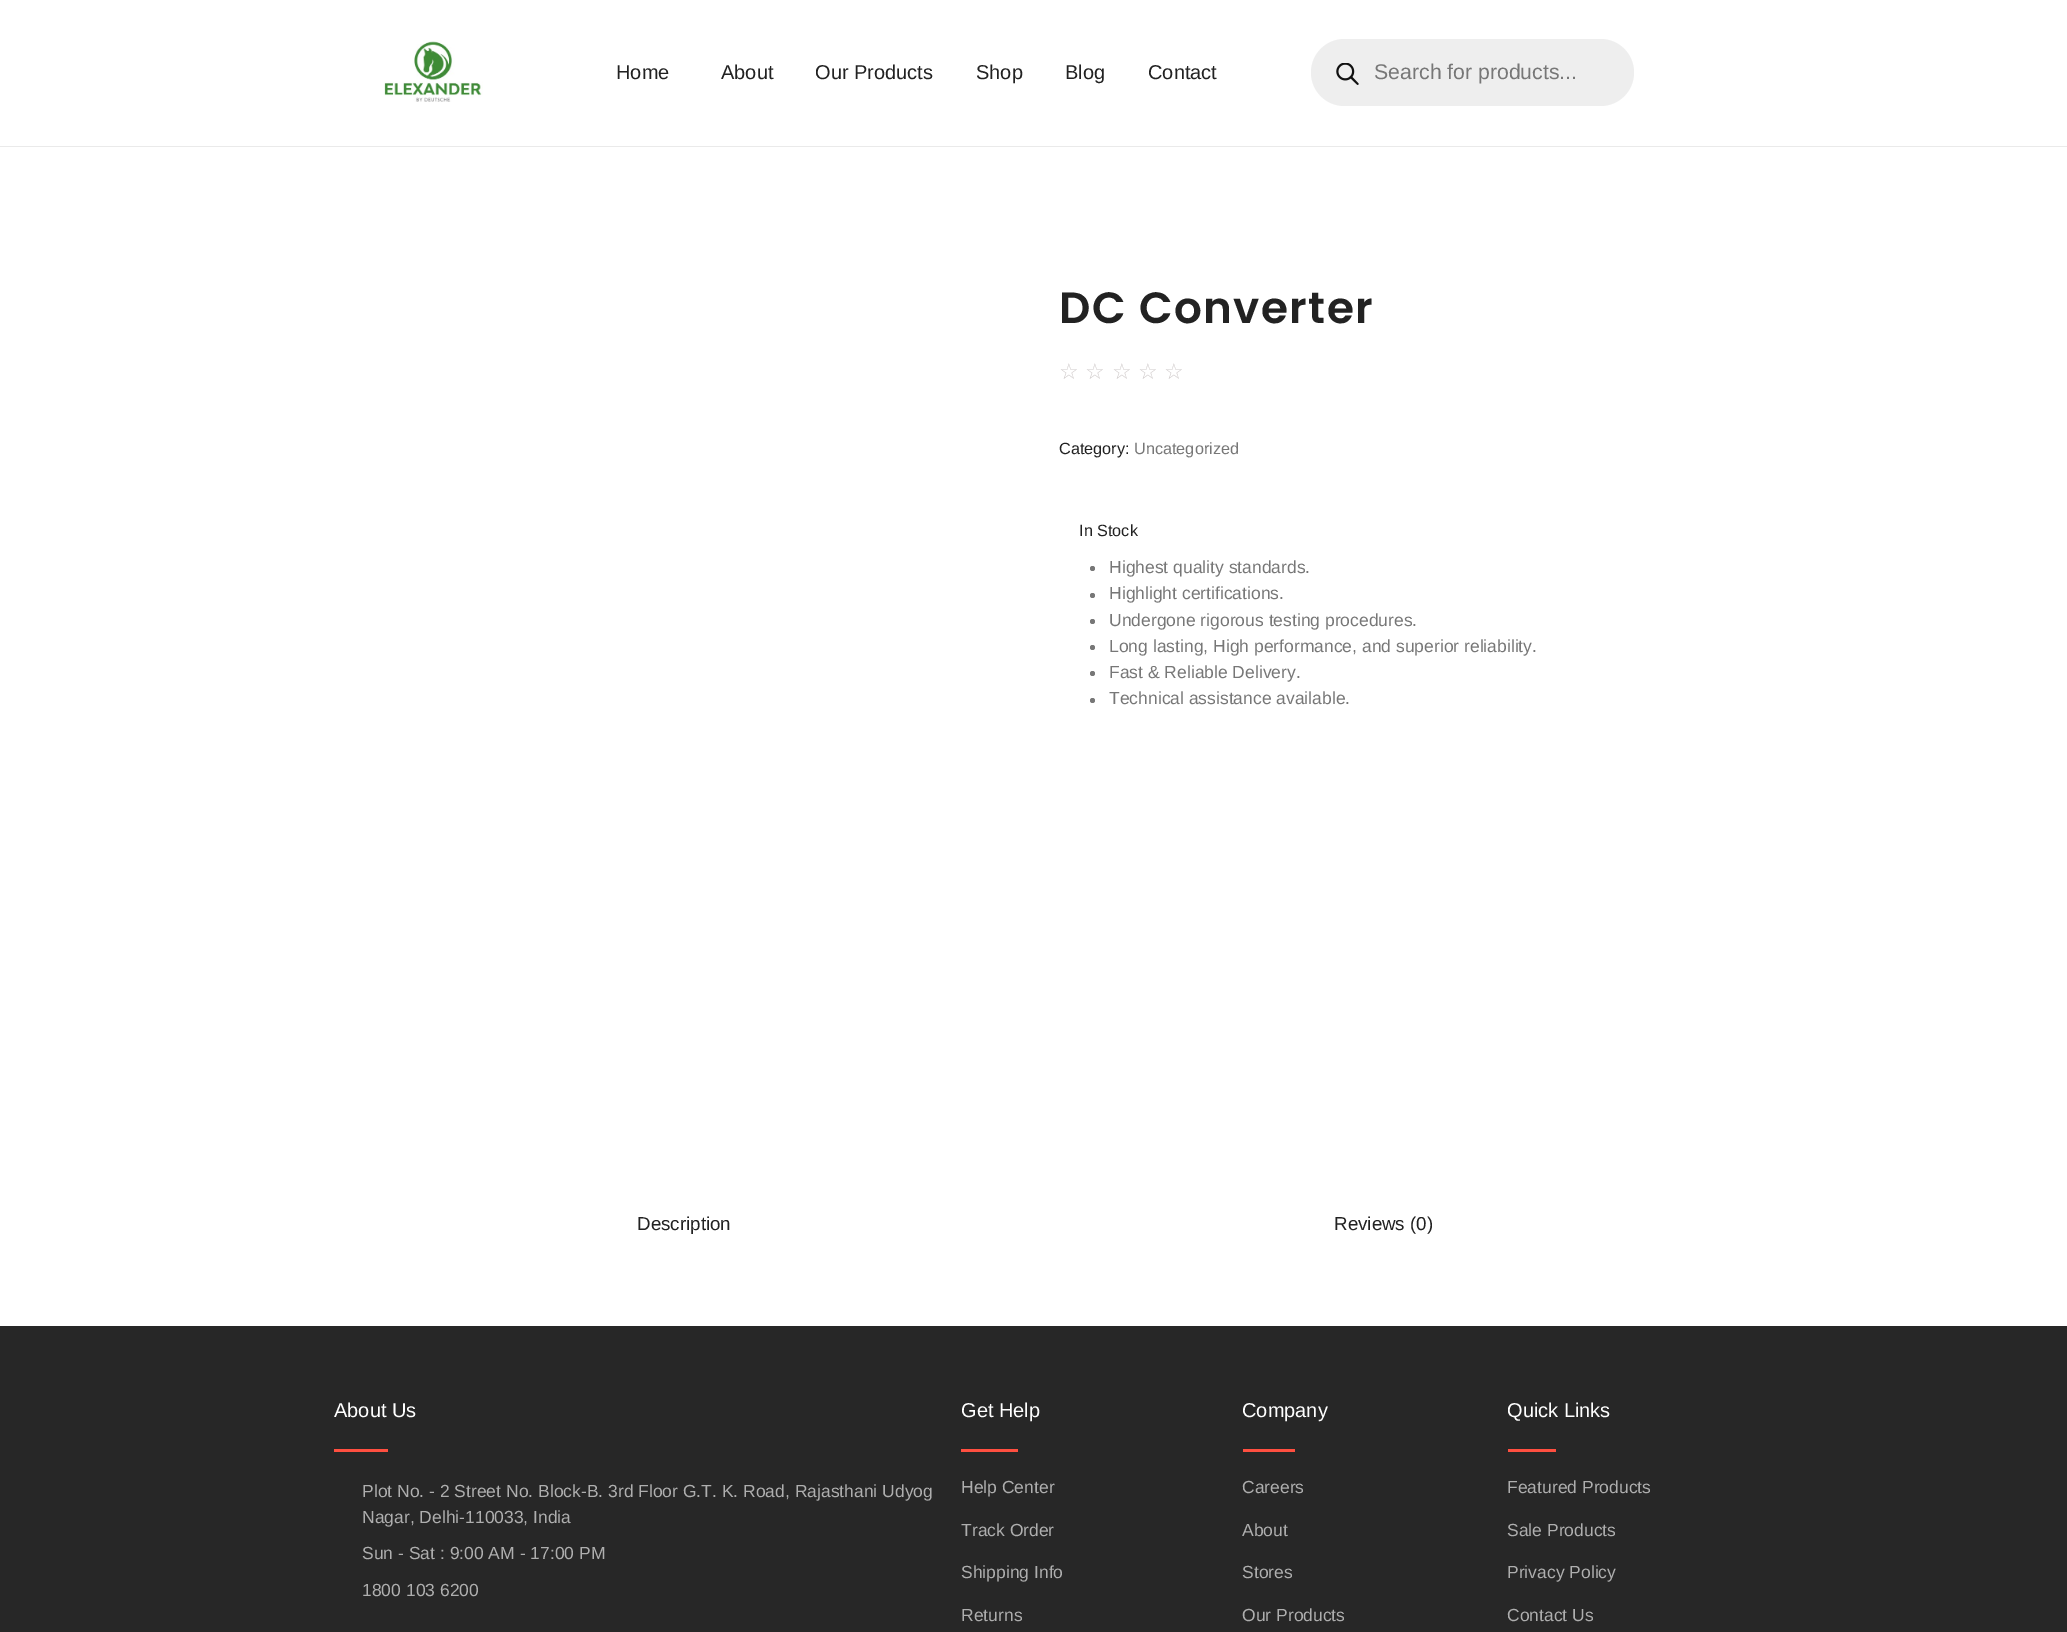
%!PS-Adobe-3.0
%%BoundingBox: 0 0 2067 1632
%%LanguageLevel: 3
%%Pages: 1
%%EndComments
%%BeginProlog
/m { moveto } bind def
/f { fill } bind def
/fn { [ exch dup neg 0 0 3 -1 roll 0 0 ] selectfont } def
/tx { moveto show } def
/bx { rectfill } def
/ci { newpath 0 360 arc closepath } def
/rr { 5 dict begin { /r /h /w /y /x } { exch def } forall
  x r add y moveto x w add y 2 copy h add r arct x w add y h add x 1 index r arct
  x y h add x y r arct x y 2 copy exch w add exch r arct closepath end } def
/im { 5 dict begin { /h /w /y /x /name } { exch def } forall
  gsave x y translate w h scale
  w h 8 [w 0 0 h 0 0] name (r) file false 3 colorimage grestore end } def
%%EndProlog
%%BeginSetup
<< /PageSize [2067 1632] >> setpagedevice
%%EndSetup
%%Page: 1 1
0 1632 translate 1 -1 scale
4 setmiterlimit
1 setgray
0 0 2067 1632 bx
0.918 setgray
0 146 2067 1 bx
(image0.raw) 384 40 99 62 im
/LiberationSans-Regular 20 fn
0.133 setgray
(Home) 616 79 tx
(About) 721 79 tx
(Our Products) 815 79 tx
(Shop) 976 79 tx
(Blog) 1065 79 tx
(Contact) 1148 79 tx
0.933 setgray
1311 39 323 67 33.5 rr f
(image1.raw) 1336 63 23 22 im
/LiberationSans-Regular 21.25 fn
0.467 setgray
(Search for products...) 1374 79 tx
/Poppins-SemiBold 43.75 fn
0.133 setgray
1059 323 m 1.4 0 (DC Converter) ashow
/DejaVuSans-Regular 22 fn
0.824 0.804 0.804 setrgbcolor
(☆) 1059 379 tx
(☆) 1085 379 tx
(☆) 1112 379 tx
(☆) 1138 379 tx
(☆) 1164 379 tx
/LiberationSans-Regular 16.25 fn
0.133 setgray
(Category:) 1059 454 tx
0.467 setgray
(Uncategorized) 1134 454 tx
0.133 setgray
(In Stock) 1079 536 tx
0.467 setgray
1092.5 568.5 2.5 ci f
/LiberationSans-Regular 17.5 fn
(Highest quality standards.) 1109 573 tx
1092.5 595.5 2.5 ci f
(Highlight certifications.) 1109 599 tx
1092.5 621.5 2.5 ci f
(Undergone rigorous testing procedures.) 1109 626 tx
1092.5 647.5 2.5 ci f
(Long lasting, High performance, and superior reliability.) 1109 652 tx
1092.5 673.5 2.5 ci f
(Fast & Reliable Delivery.) 1109 678 tx
1092.5 700.5 2.5 ci f
(Technical assistance available.) 1109 704 tx
/LiberationSans-Regular 18.75 fn
0.133 setgray
(Description) 637 1230 tx
(Reviews \(0\)) 1334 1230 tx
0.153 setgray
0 1326 2067 306 bx
/LiberationSans-Regular 20 fn
1 setgray
(About Us) 334 1417 tx
1 0.31 0.251 setrgbcolor
334 1449 54 3 bx
/LiberationSans-Regular 17.5 fn
0.682 setgray
(Plot No. - 2 Street No. Block-B. 3rd Floor G.T. K. Road, Rajasthani Udyog) 362 1497 tx
(Nagar, Delhi-110033, India) 362 1523 tx
(Sun - Sat : 9:00 AM - 17:00 PM) 362 1559 tx
(1800 103 6200) 362 1596 tx
/LiberationSans-Regular 20 fn
1 setgray
(Get Help) 961 1417 tx
1 0.31 0.251 setrgbcolor
961 1449 57 3 bx
/LiberationSans-Regular 17.5 fn
0.682 setgray
(Help Center) 961 1493 tx
(Track Order) 961 1536 tx
(Shipping Info) 961 1578 tx
(Returns) 961 1621 tx
/LiberationSans-Regular 20 fn
1 setgray
(Company) 1242 1417 tx
1 0.31 0.251 setrgbcolor
1243 1449 52 3 bx
/LiberationSans-Regular 17.5 fn
0.682 setgray
(Careers) 1242 1493 tx
(About) 1242 1536 tx
(Stores) 1242 1578 tx
(Our Products) 1242 1621 tx
/LiberationSans-Regular 20 fn
1 setgray
(Quick Links) 1507 1417 tx
1 0.31 0.251 setrgbcolor
1508 1449 48 3 bx
/LiberationSans-Regular 17.5 fn
0.682 setgray
(Featured Products) 1507 1493 tx
(Sale Products) 1507 1536 tx
(Privacy Policy) 1507 1578 tx
(Contact Us) 1507 1621 tx
showpage
%%EOF
